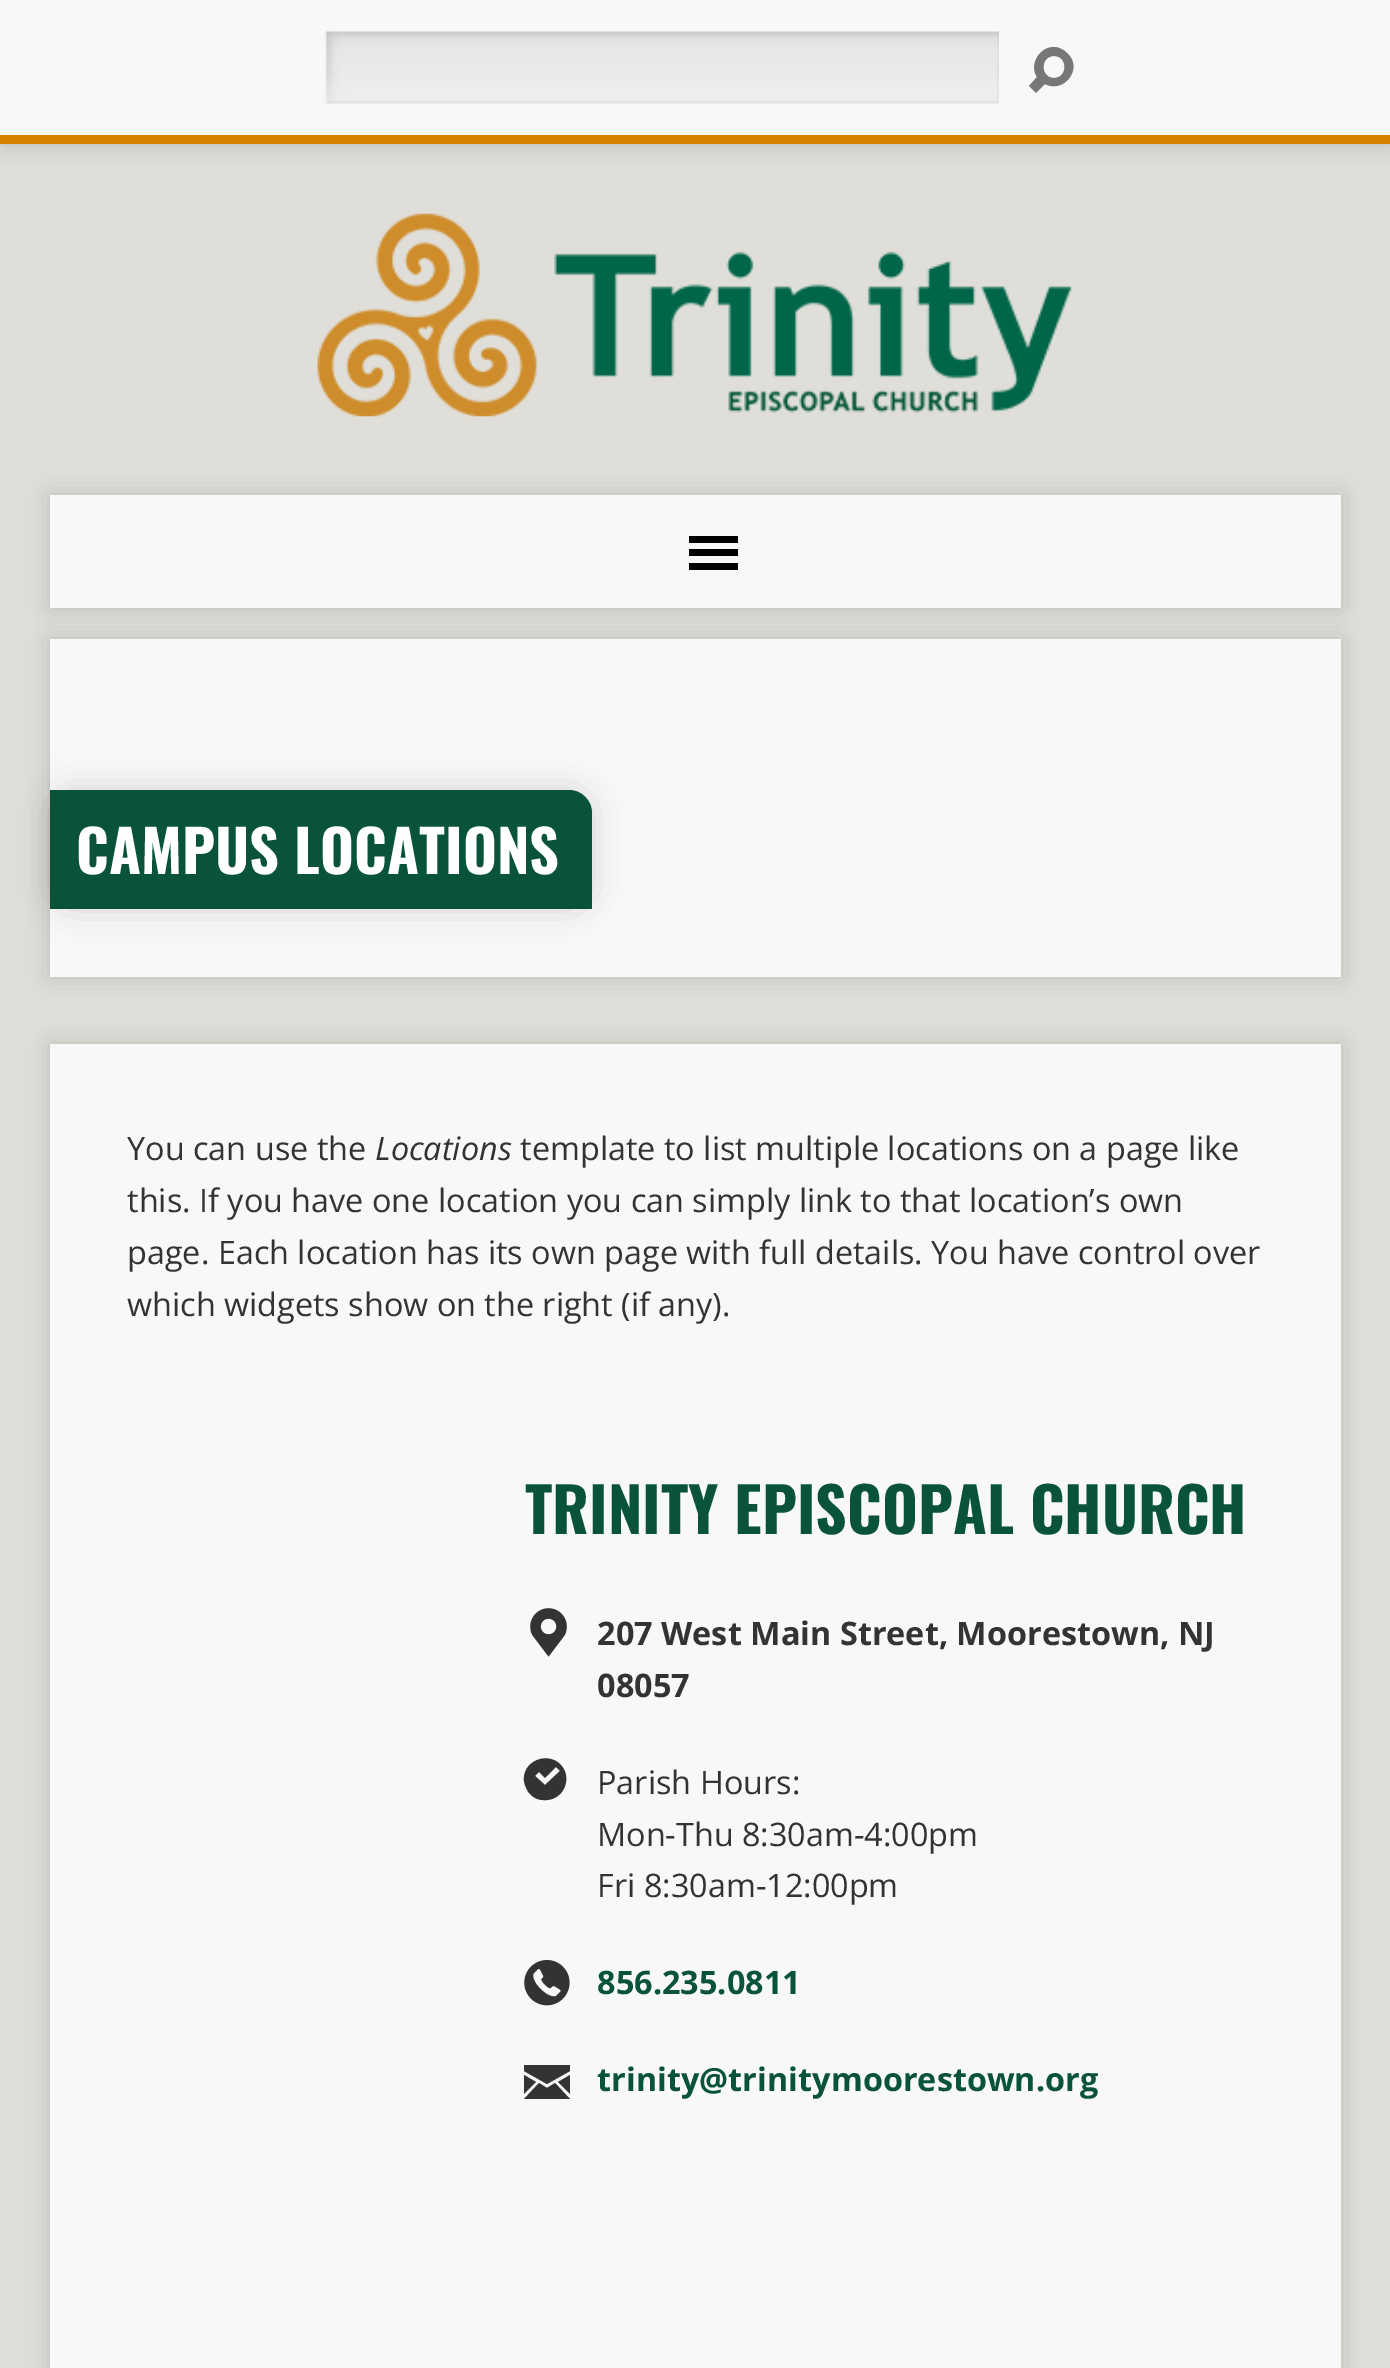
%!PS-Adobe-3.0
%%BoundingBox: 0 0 1390 2368
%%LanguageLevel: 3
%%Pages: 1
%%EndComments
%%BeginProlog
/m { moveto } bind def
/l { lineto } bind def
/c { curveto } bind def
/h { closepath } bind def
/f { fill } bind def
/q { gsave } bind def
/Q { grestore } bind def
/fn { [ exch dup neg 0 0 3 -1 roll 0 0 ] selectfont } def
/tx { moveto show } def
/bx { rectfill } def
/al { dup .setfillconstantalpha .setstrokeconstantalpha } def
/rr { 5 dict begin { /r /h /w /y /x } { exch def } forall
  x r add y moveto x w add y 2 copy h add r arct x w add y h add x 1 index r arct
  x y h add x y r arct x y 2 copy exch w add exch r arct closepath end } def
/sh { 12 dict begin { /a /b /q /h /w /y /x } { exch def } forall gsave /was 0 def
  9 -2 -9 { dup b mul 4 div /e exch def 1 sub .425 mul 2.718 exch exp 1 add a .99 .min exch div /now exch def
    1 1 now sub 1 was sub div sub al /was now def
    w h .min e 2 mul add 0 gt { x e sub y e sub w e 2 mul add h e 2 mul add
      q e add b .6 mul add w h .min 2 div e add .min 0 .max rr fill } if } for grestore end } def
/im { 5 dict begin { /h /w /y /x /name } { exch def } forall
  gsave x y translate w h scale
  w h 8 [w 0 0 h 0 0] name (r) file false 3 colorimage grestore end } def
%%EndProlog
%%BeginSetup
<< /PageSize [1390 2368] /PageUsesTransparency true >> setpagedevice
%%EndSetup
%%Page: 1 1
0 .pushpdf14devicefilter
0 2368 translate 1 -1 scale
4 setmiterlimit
0.875 0.871 0.847 setrgbcolor
0 0 1390 2368 bx
0 setgray
0 0 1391 144 0 11 0.15 sh
0.973 setgray
0 0 1390 135 bx
0.839 0.506 0 setrgbcolor
0 135 1390 9 bx
1 setgray
324 32 675 72 bx
(image0.raw) 326 31 673 73 im
0.1 al
0.588 setgray
999 32 m 999 104 l 997 101 l 997 32 l h f
999 104 m 324 104 l 326 101 l 997 101 l h f
324 104 m 324 32 l 326 32 l 326 101 l h f
1 al
0.467 setgray
1054 47 m 1039 47 1029 65 1037 77 c 1029 86 l 1036 93 l 1045 84 l 1064 94 1084 68 1067 53 c 1063 49 1058 47 1054 47 c h 1054 56 m 1068 56 1068 78 1054 78 c 1040 78 1040 56 1054 56 c h f
(image1.raw) 317 213 755 204 im
q
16 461 m 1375 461 l 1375 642 l 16 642 l h 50 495 m 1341 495 l 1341 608 l 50 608 l h eoclip newpath
0 setgray
50 495 1291 113 0 11 0.15 sh
Q
0.94 al
0.98 setgray
50 495 1291 113 bx
1 al
0 setgray
689 536 49 7 bx
689 549 49 7 bx
689 563 49 7 bx
q
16 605 m 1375 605 l 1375 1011 l 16 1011 l h 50 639 m 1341 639 l 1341 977 l 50 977 l h eoclip newpath
50 639 1291 338 0 11 0.15 sh
Q
0.94 al
0.98 setgray
50 639 1291 338 bx
1 al
0 setgray
50 790 542 119 23 16 0.15 sh
0.035 0.329 0.224 setrgbcolor
50 790 m 569 790 l 581.5 790 592 800.5 592 813 c 592 909 l 50 909 l h f
/Oswald-Bold 58.25 fn
1 setgray
(CAMPUS LOCATIONS) 76 874 tx
0 setgray
50 1044 1291 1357 0 11 0.15 sh
0.973 setgray
50 1044 1291 1324 bx
/OpenSans-Regular 32.4 fn
0.2 setgray
(You can use the) 127 1160 tx
/OpenSans-Italic 32.4 fn
(Locations) 375 1160 tx
/OpenSans-Regular 32.4 fn
(template to list multiple locations on a page like) 520 1160 tx
(this. If you have one location you can simply link to that location’s own) 127 1212 tx
(page. Each location has its own page with full details. You have control over) 127 1264 tx
(which widgets show on the right \(if any\).) 127 1316 tx
/Oswald-Bold 61.5 fn
0.035 0.329 0.224 setrgbcolor
(TRINITY EPISCOPAL CHURCH) 525 1534 tx
(image2.raw) 530 1608 37 49 im
/OpenSans-Bold 32.4 fn
0.2 setgray
(207 West Main Street, Moorestown, NJ) 597 1645 tx
(08057) 597 1697 tx
560 1764 m 546 1751 522 1762 524 1781 c 525 1786 527 1791 530 1794 c 534 1798 538 1800 543 1800 c 563 1802 574 1778 560 1764 c h 556 1767 m 560 1771 l 545 1785 l 535 1776 l 539 1772 l 545 1778 l h f
/OpenSans-Regular 32.4 fn
(Parish Hours:) 597 1794 tx
(Mon-Thu 8:30am-4:00pm) 597 1846 tx
(Fri 8:30am-12:00pm) 597 1897 tx
(image3.raw) 524 1960 46 46 im
/OpenSans-Bold 32.4 fn
0.035 0.329 0.224 setrgbcolor
(856.235.0811) 597 1994 tx
0.2 setgray
524 2065 m 524 2071 l 547 2084 l 570 2071 l 570 2065 l h 524 2075 m 524 2094 l 536 2082 l h 570 2075 m 558 2082 l 570 2094 l h 539 2083 m 524 2099 l 570 2099 l 555 2083 l 547 2088 l h f
0.035 0.329 0.224 setrgbcolor
(trinity@trinitymoorestown.org) 597 2091 tx
.poppdf14devicefilter showpage
%%EOF
